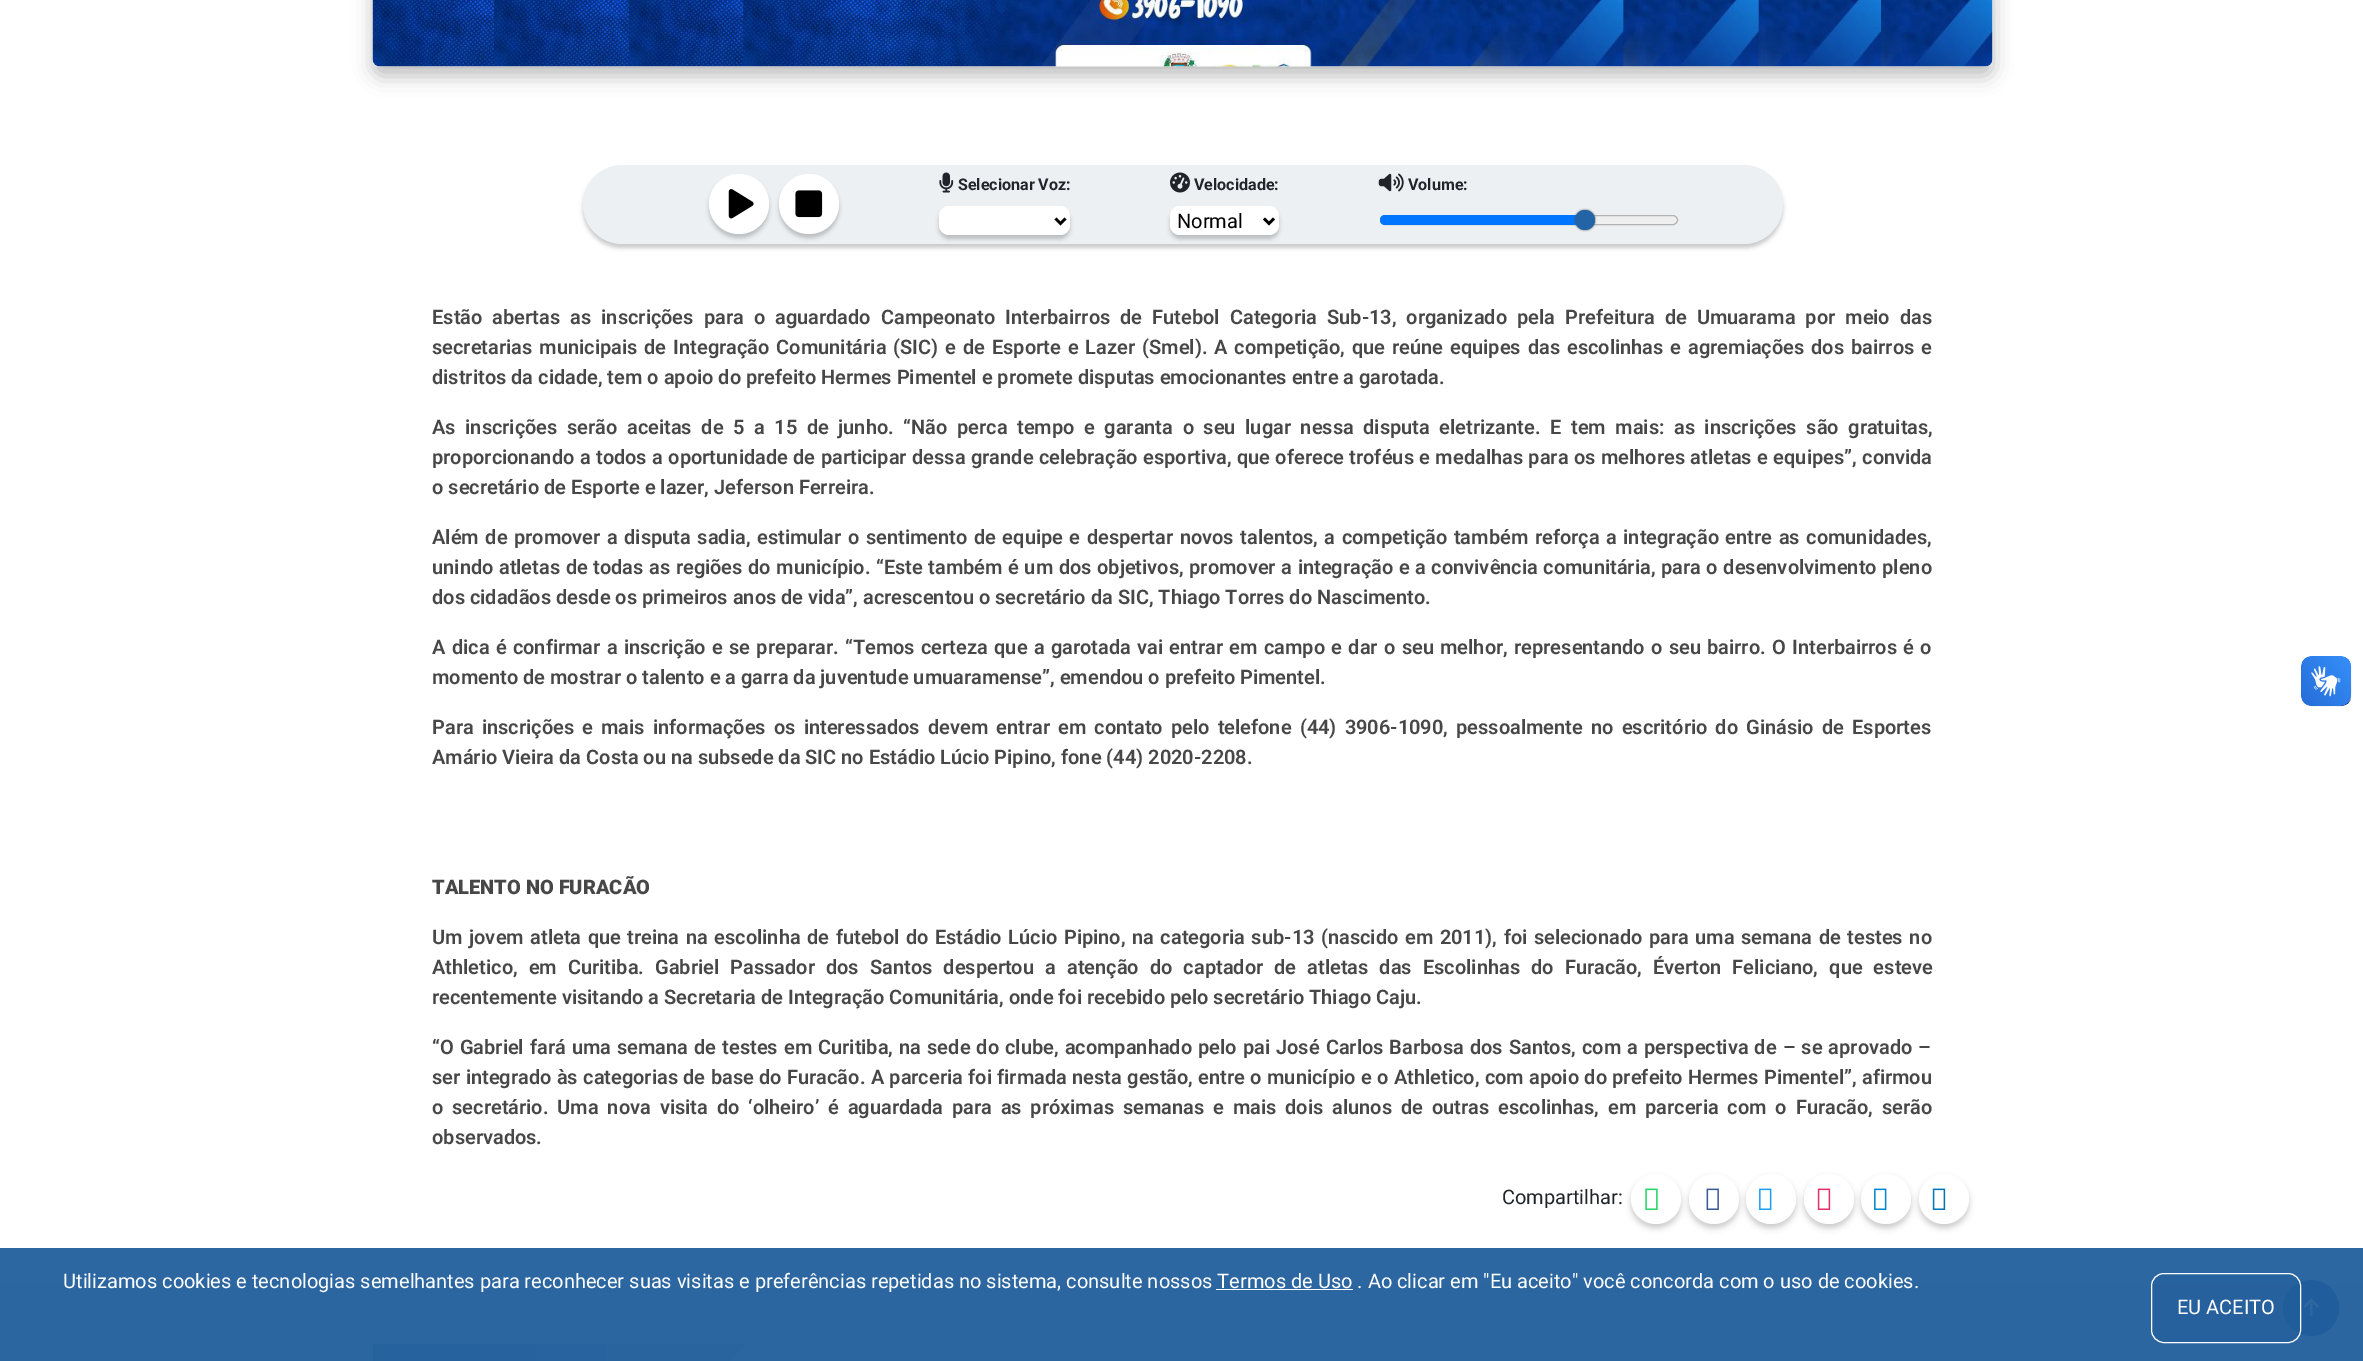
%!PS-Adobe-3.0
%%BoundingBox: 0 0 2363 1361
%%LanguageLevel: 3
%%Pages: 1
%%EndComments
%%BeginProlog
/m { moveto } bind def
/l { lineto } bind def
/c { curveto } bind def
/h { closepath } bind def
/f { fill } bind def
/S { stroke } bind def
/q { gsave } bind def
/Q { grestore } bind def
/w { setlinewidth } bind def
/fn { [ exch dup neg 0 0 3 -1 roll 0 0 ] selectfont } def
/tx { moveto show } def
/bx { rectfill } def
/al { dup .setfillconstantalpha .setstrokeconstantalpha } def
/ci { newpath 0 360 arc closepath } def
/rr { 5 dict begin { /r /h /w /y /x } { exch def } forall
  x r add y moveto x w add y 2 copy h add r arct x w add y h add x 1 index r arct
  x y h add x y r arct x y 2 copy exch w add exch r arct closepath end } def
/sh { 12 dict begin { /a /b /q /h /w /y /x } { exch def } forall gsave /was 0 def
  9 -2 -9 { dup b mul 4 div /e exch def 1 sub .425 mul 2.718 exch exp 1 add a .99 .min exch div /now exch def
    1 1 now sub 1 was sub div sub al /was now def
    w h .min e 2 mul add 0 gt { x e sub y e sub w e 2 mul add h e 2 mul add
      q e add b .6 mul add w h .min 2 div e add .min 0 .max rr fill } if } for grestore end } def
/im { 5 dict begin { /h /w /y /x /name } { exch def } forall
  gsave x y translate w h scale
  w h 8 [w 0 0 h 0 0] name (r) file false 3 colorimage grestore end } def
%%EndProlog
%%BeginSetup
<< /PageSize [2363 1361] /PageUsesTransparency true >> setpagedevice
%%EndSetup
%%Page: 1 1
0 .pushpdf14devicefilter
0 1361 translate 1 -1 scale
4 setmiterlimit
1 setgray
0 0 2363 1361 bx
0.176 0.404 0.631 setrgbcolor
0 1248 2363 36 bx
0 setgray
373 -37 1620 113 8 9.5 0.25 sh
(image0.raw) 372 0 1621 67 im
583 169 1200 79 39.5 2 0.2 sh
0.929 0.941 0.949 setrgbcolor
583 165 1200 79 39.5 rr f
0 setgray
709 178 60 60 30 2 0.2 sh
1 setgray
739 204 30 ci f
(image1.raw) 728 189 26 30 im
0 setgray
779 178 60 60 30 2 0.2 sh
1 setgray
809 204 30 ci f
(image2.raw) 795 190 28 28 im
(image3.raw) 939 172 15 21 im
/Roboto-Bold 16 fn
0.129 0.145 0.161 setrgbcolor
(Selecionar Voz:) 958 190 tx
0 setgray
939 210 131 29 10 2 0.2 sh
1 setgray
939 206 131 29 10 rr f
0 setgray
2.5 w
1055.5 218.5 m 1060.5 223.5 l 1065.5 218.5 l S
(image4.raw) 1170 172 20 21 im
0.129 0.145 0.161 setrgbcolor
(Velocidade:) 1194 190 tx
0 setgray
1170 210 109 29 10 2 0.2 sh
1 setgray
1170 206 109 29 10 rr f
0 setgray
1264 218.5 m 1269 223.5 l 1274 218.5 l S
/Roboto-Regular 20 fn
(Normal) 1177 228 tx
(image5.raw) 1378 173 26 19 im
/Roboto-Bold 16 fn
0.129 0.145 0.161 setrgbcolor
(Volume:) 1408 190 tx
0.937 setgray
1380.5 215.5 297 9 4.5 rr q f Q
0.698 setgray
1 w
S
0 0.459 1 setrgbcolor
1385 215 m 1585 215 l 1585 225 l 1385 225 l 1382 225 1380 223 1380 220 c 1380 217 1382 215 1385 215 c h f
0.333 setgray
1575 210 20 20 10 1 1 sh
0.137 0.392 0.651 setrgbcolor
1585 220 10 ci f
/Roboto-SemiBold 20 fn
0.278 setgray
432 324 m 5.1 0 32 (Estão abertas as inscrições para o aguardado Campeonato Interbairros de Futebol Categoria Sub-13, organizado pela Prefeitura de Umuarama por meio das) widthshow
432 354 m 2 0 32 (secretarias municipais de Integração Comunitária \(SIC\) e de Esporte e Lazer \(Smel\). A competição, que reúne equipes das escolinhas e agremiações dos bairros e) widthshow
(distritos da cidade, tem o apoio do prefeito Hermes Pimentel e promete disputas emocionantes entre a garotada.) 432 384 tx
432 434 m 4.6 0 32 (As inscrições serão aceitas de 5 a 15 de junho. “Não perca tempo e garanta o seu lugar nessa disputa eletrizante. E tem mais: as inscrições são gratuitas,) widthshow
432 464 m 0.5 0 32 (proporcionando a todos a oportunidade de participar dessa grande celebração esportiva, que oferece troféus e medalhas para os melhores atletas e equipes”, convida) widthshow
(o secretário de Esporte e lazer, Jeferson Ferreira.) 432 494 tx
432 544 m 1.6 0 32 (Além de promover a disputa sadia, estimular o sentimento de equipe e despertar novos talentos, a competição também reforça a integração entre as comunidades,) widthshow
432 574 m 0.6 0 32 (unindo atletas de todas as regiões do município. “Este também é um dos objetivos, promover a integração e a convivência comunitária, para o desenvolvimento pleno) widthshow
(dos cidadãos desde os primeiros anos de vida”, acrescentou o secretário da SIC, Thiago Torres do Nascimento.) 432 604 tx
432 654 m 1.35 0 32 (A dica é confirmar a inscrição e se preparar. “Temos certeza que a garotada vai entrar em campo e dar o seu melhor, representando o seu bairro. O Interbairros é o) widthshow
(momento de mostrar o talento e a garra da juventude umuaramense”, emendou o prefeito Pimentel.) 432 684 tx
432 734 m 3.2 0 32 (Para inscrições e mais informações os interessados devem entrar em contato pelo telefone \(44\) 3906-1090, pessoalmente no escritório do Ginásio de Esportes) widthshow
(Amário Vieira da Costa ou na subsede da SIC no Estádio Lúcio Pipino, fone \(44\) 2020-2208.) 432 764 tx
/Roboto-Black 20 fn
(TALENTO NO FURACÃO) 432 894 tx
/Roboto-SemiBold 20 fn
432 944 m 1.6 0 32 (Um jovem atleta que treina na escolinha de futebol do Estádio Lúcio Pipino, na categoria sub-13 \(nascido em 2011\), foi selecionado para uma semana de testes no) widthshow
432 974 m 6.1 0 32 (Athletico, em Curitiba. Gabriel Passador dos Santos despertou a atenção do captador de atletas das Escolinhas do Furacão, Éverton Feliciano, que esteve) widthshow
(recentemente visitando a Secretaria de Integração Comunitária, onde foi recebido pelo secretário Thiago Caju.) 432 1004 tx
432 1054 m 1.1 0 32 (“O Gabriel fará uma semana de testes em Curitiba, na sede do clube, acompanhado pelo pai José Carlos Barbosa dos Santos, com a perspectiva de – se aprovado –) widthshow
432 1084 m 0.4 0 32 (ser integrado às categorias de base do Furacão. A parceria foi firmada nesta gestão, entre o município e o Athletico, com apoio do prefeito Hermes Pimentel”, afirmou) widthshow
432 1114 m 3.9 0 32 (o secretário. Uma nova visita do ‘olheiro’ é aguardada para as próximas semanas e mais dois alunos de outras escolinhas, em parceria com o Furacão, serão) widthshow
(observados.) 432 1144 tx
/Roboto-Regular 20 fn
0.129 0.145 0.161 setrgbcolor
(Compartilhar:) 1502 1204 tx
0 setgray
1631 1178 50 50 25 3 0.2 sh
1 setgray
1656 1199 25 ci f
(image6.raw) 1645 1188 13 22 im
0 setgray
1689 1178 50 50 25 3 0.2 sh
1 setgray
1714 1199 25 ci f
(image7.raw) 1706 1188 13 22 im
0 setgray
1746 1178 50 50 25 3 0.2 sh
1 setgray
1771 1199 25 ci f
(image8.raw) 1759 1188 13 22 im
0 setgray
1804 1178 50 50 25 3 0.2 sh
1 setgray
1829 1199 25 ci f
(image9.raw) 1817 1188 14 22 im
0 setgray
1861 1178 50 50 25 3 0.2 sh
1 setgray
1886 1199 25 ci f
(image10.raw) 1874 1188 13 22 im
0 setgray
1919 1178 50 50 25 3 0.2 sh
1 setgray
1944 1199 25 ci f
(image11.raw) 1932 1188 14 22 im
0.118 0.341 0.573 setrgbcolor
0 1280 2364 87 0 2 0.09 sh
q 0 1284 m 2363 1284 l 2363 1361 l 0 1361 l h clip newpath
<< /ShadingType 2 /ColorSpace /DeviceRGB /Coords [1182 1284 1182 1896] /Extend [true true] /Function << /FunctionType 2 /Domain [0 1] /C0 [0.173 0.4 0.627] /C1 [0.176 0.404 0.631] /N 1 >> >> shfill Q
q 373 1344 m 746 1344 l 710 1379 l 373 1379 l h clip newpath
<< /ShadingType 2 /ColorSpace /DeviceRGB /Coords [373 1361 748 1361] /Extend [true true] /Function << /FunctionType 3 /Domain [0 1] /Functions [<< /FunctionType 2 /Domain [0 1] /C0 [0.149 0.384 0.62] /C1 [0.149 0.384 0.62] /N 1 >> << /FunctionType 2 /Domain [0 1] /C0 [0.149 0.384 0.62] /C1 [0.161 0.388 0.624] /N 1 >> << /FunctionType 2 /Domain [0 1] /C0 [0.161 0.388 0.624] /C1 [0.161 0.392 0.624] /N 1 >> << /FunctionType 2 /Domain [0 1] /C0 [0.161 0.392 0.624] /C1 [0.169 0.396 0.627] /N 1 >>] /Bounds [0.25 0.5 0.75] /Encode [0 1 0 1 0 1 0 1] >> >> shfill Q
1 setgray
(Utilizamos cookies e tecnologias semelhantes para reconhecer suas visitas e preferências repetidas no sistema, consulte nossos Termos de Uso . Ao clicar em "Eu aceito" você concorda com o uso de cookies.) 63 1288 tx
1216 1289 137 1 bx
0.125 0.365 0.612 setrgbcolor
2311 1308 28 ci f
0.51 al
0.125 0.365 0.608 setrgbcolor
2151.5 1273.5 149 69 12.5 rr f
1 al
1 setgray
2151.5 1273.5 149 69 12.5 rr S
(EU ACEITO) 2177 1314 tx
(image12.raw) 2303 1298 16 19 im
(image13.raw) 2301 656 51 51 im
(image14.raw) 2301 656 50 50 im
.poppdf14devicefilter showpage
%%EOF
